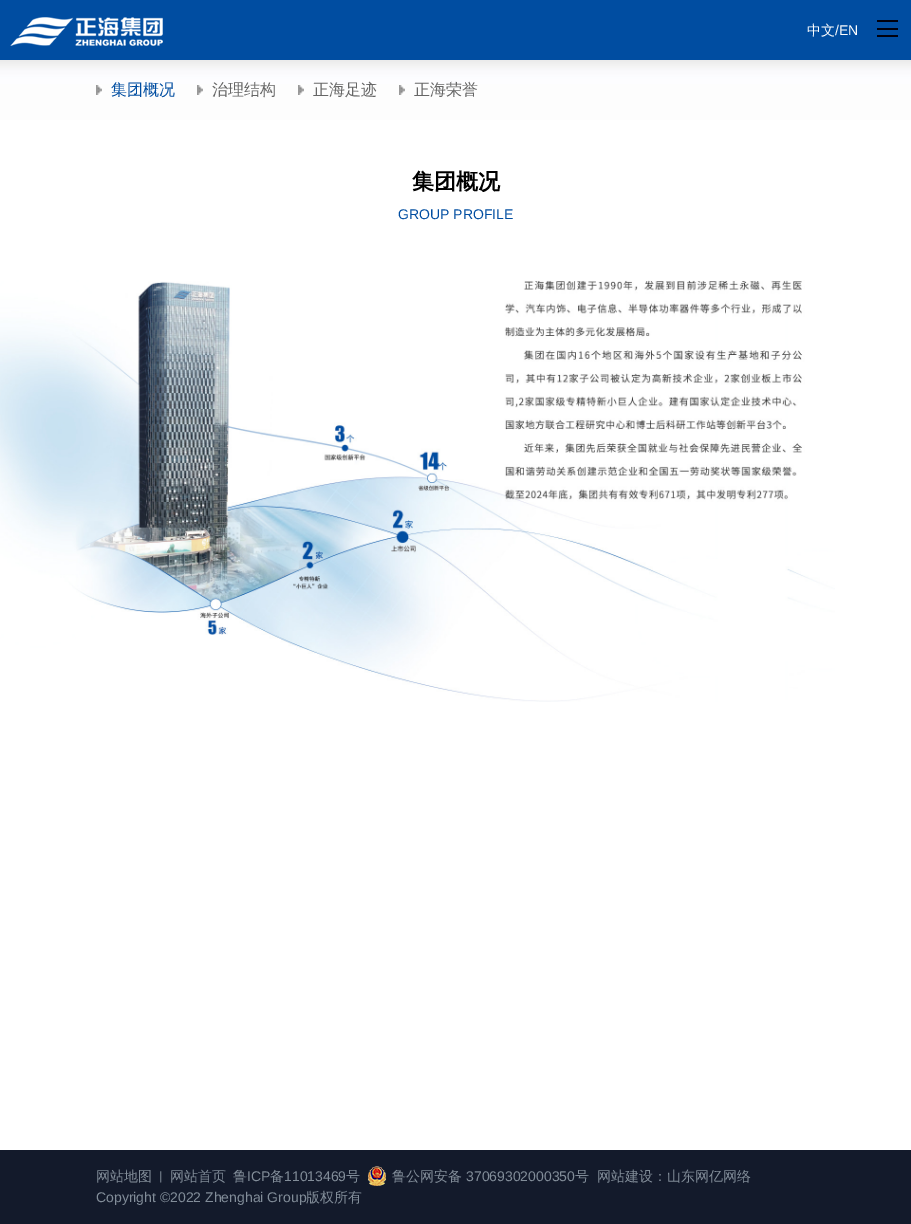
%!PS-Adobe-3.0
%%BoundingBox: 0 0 911 1224
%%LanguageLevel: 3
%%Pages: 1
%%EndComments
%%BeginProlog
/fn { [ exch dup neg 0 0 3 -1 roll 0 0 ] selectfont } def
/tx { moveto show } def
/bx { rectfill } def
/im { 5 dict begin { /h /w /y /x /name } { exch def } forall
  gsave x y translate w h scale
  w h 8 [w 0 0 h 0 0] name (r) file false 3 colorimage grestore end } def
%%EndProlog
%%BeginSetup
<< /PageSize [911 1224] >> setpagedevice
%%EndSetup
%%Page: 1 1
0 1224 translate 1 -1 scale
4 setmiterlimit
1 setgray
0 0 911 1224 bx
0 0.302 0.631 setrgbcolor
0 0 911 60 bx
(image0.raw) 10 17 153 29 im
/WenQuanYiZenHei-Medium 14 fn
1 setgray
(中文) 807 35 tx
/LiberationSans-Regular 14 fn
(/EN) 835 35 tx
(image1.raw) 877 20 21 17 im
(image2.raw) 0 60 911 60 im
(image3.raw) 96 85 6 10 im
/WenQuanYiZenHei-Medium 16 fn
0 0.302 0.631 setrgbcolor
(集团概况) 111 95 tx
(image3.raw) 197 85 6 10 im
0.4 setgray
(治理结构) 212 95 tx
(image3.raw) 298 85 6 10 im
(正海足迹) 313 95 tx
(image3.raw) 399 85 6 10 im
(正海荣誉) 414 95 tx
/WenQuanYiZenHei-Bold 22 fn
0 setgray
(集团概况) 412 189 tx
/LiberationSans-Regular 14 fn
0 0.302 0.631 setrgbcolor
(GROUP PROFILE) 398 219 tx
(image4.raw) 0 280 835 422 im
0.075 0.102 0.169 setrgbcolor
0 1150 911 74 bx
/WenQuanYiZenHei-Medium 14 fn
0.51 0.553 0.6 setrgbcolor
(网站地图) 96 1181 tx
/WenQuanYiZenHei-Medium 12 fn
(丨) 155 1181 tx
/WenQuanYiZenHei-Medium 14 fn
(网站首页) 170 1181 tx
(鲁) 233 1181 tx
/LiberationSans-Regular 14 fn
(ICP) 247 1181 tx
/WenQuanYiZenHei-Medium 14 fn
(备) 270 1181 tx
/LiberationSans-Regular 14 fn
(11013469) 284 1181 tx
/WenQuanYiZenHei-Medium 14 fn
(号) 346 1181 tx
(image5.raw) 368 1166 18 20 im
(鲁公网安备) 392 1181 tx
/LiberationSans-Regular 14 fn
(37069302000350) 466 1181 tx
/WenQuanYiZenHei-Medium 14 fn
(号) 575 1181 tx
(网站建设：山东网亿网络) 597 1181 tx
/LiberationSans-Regular 14 fn
(Copyright ©2022 Zhenghai Group) 96 1202 tx
/WenQuanYiZenHei-Medium 14 fn
(版权所有) 306 1202 tx
showpage
%%EOF
